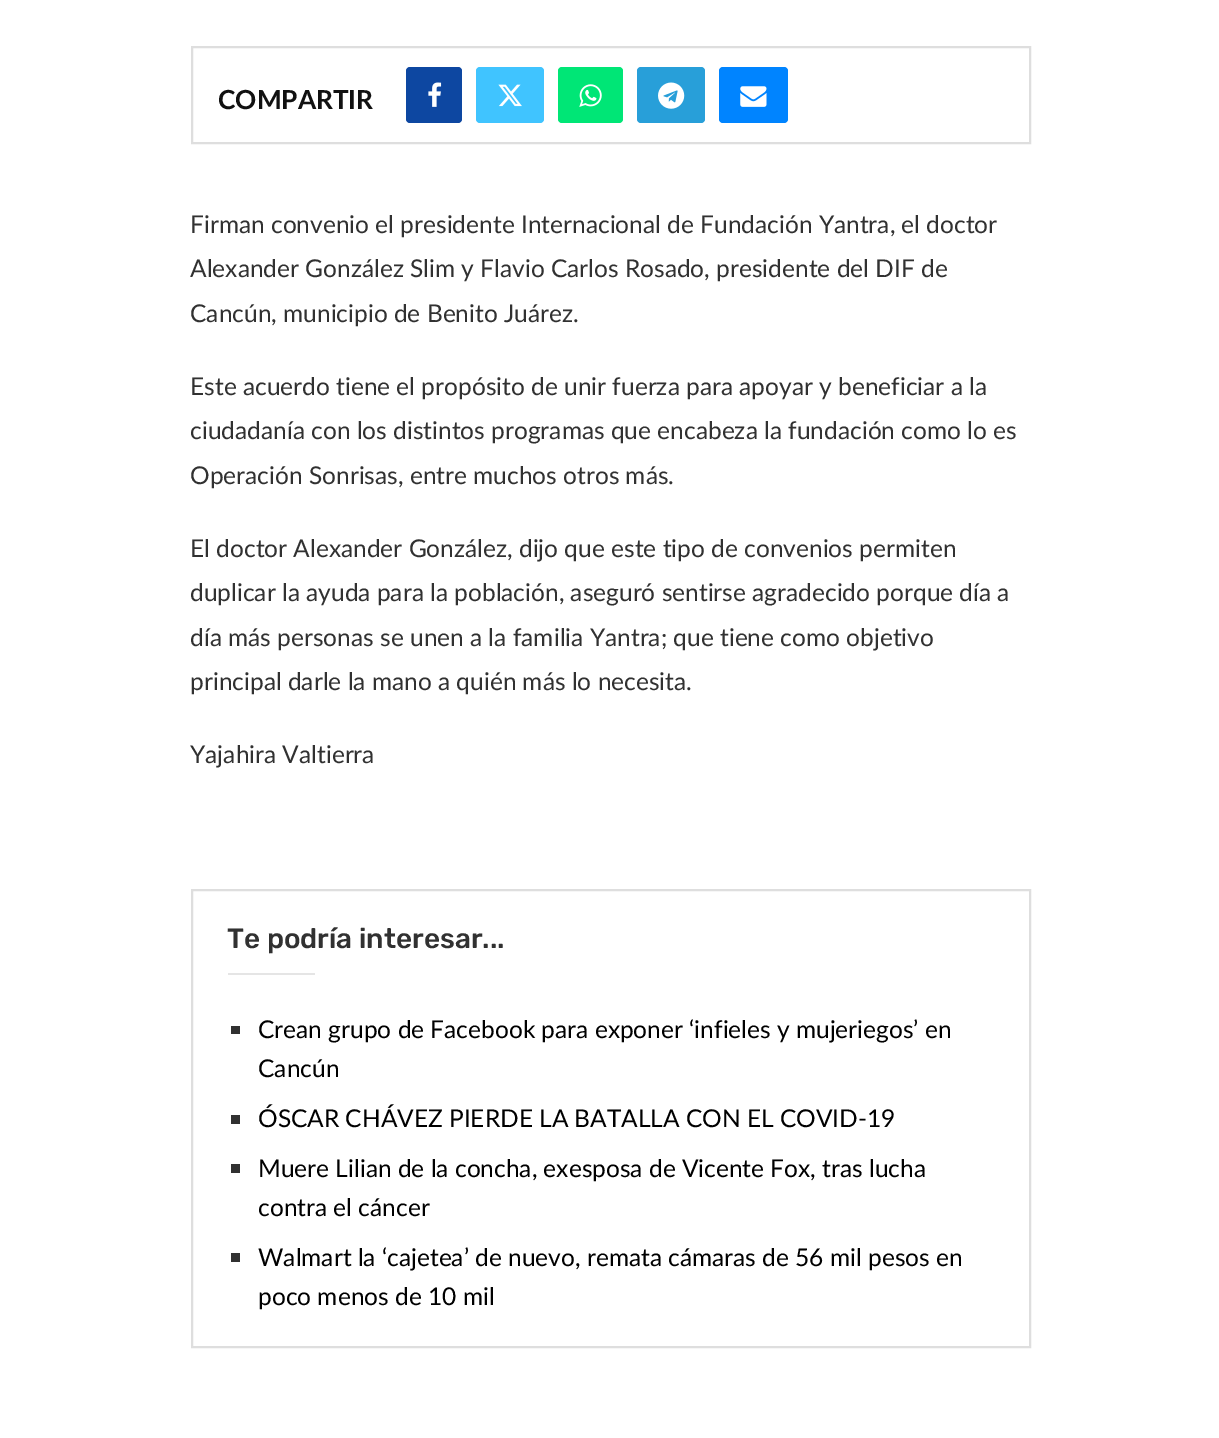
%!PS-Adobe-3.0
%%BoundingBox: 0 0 1219 1438
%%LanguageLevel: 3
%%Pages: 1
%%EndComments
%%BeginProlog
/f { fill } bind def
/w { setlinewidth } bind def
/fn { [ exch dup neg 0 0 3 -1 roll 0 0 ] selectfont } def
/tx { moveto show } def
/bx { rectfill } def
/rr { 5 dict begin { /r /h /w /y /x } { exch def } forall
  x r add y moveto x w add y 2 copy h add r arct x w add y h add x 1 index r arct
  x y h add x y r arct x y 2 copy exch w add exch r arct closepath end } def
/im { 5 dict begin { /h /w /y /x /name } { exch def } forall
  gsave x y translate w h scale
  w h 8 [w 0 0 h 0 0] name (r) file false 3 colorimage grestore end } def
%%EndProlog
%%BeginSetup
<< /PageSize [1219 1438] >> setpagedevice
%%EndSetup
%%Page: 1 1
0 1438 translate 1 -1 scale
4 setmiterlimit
1 setgray
0 0 1219 1438 bx
0.871 setgray
2 w
192 47 838 96 rectstroke
/Lato-Bold 26.25 fn
0.067 setgray
(COMPARTIR) 218 109 tx
0.051 0.278 0.631 setrgbcolor
406 67 56 56 4 rr f
(image0.raw) 428 82 14 25 im
0.251 0.769 1 setrgbcolor
476 67 68 56 4 rr f
(image1.raw) 498 84 24 23 im
0 0.902 0.463 setrgbcolor
558 67 65 56 4 rr f
(image2.raw) 579 84 23 23 im
0.157 0.624 0.851 setrgbcolor
637 67 68 56 4 rr f
(image3.raw) 658 82 27 27 im
0 0.518 1 setrgbcolor
719 67 69 56 4 rr f
(image4.raw) 740 86 27 21 im
/Lato-Regular 24.5 fn
0.192 setgray
(Firman convenio el presidente Internacional de Fundación Yantra, el doctor) 190 233 tx
(Alexander González Slim y Flavio Carlos Rosado, presidente del DIF de) 190 277 tx
(Cancún, municipio de Benito Juárez.) 190 322 tx
(Este acuerdo tiene el propósito de unir fuerza para apoyar y beneficiar a la) 190 395 tx
(ciudadanía con los distintos programas que encabeza la fundación como lo es) 190 439 tx
(Operación Sonrisas, entre muchos otros más.) 190 484 tx
(El doctor Alexander González, dijo que este tipo de convenios permiten) 190 557 tx
(duplicar la ayuda para la población, aseguró sentirse agradecido porque día a) 190 601 tx
(día más personas se unen a la familia Yantra; que tiene como objetivo) 190 646 tx
(principal darle la mano a quién más lo necesita.) 190 690 tx
(Yajahira Valtierra) 190 763 tx
0.871 setgray
192 890 838 457 rectstroke
/Rubik-Medium 28 fn
0.192 setgray
(Te podría interesar...) 227 948 tx
0.898 setgray
228 973 87 2 bx
0.192 setgray
231 1026 9 8 bx
/Lato-Regular 24.5 fn
0 setgray
(Crean grupo de Facebook para exponer ‘infieles y mujeriegos’ en) 258 1038 tx
(Cancún) 258 1077 tx
0.192 setgray
231 1115 9 9 bx
0 setgray
(ÓSCAR CHÁVEZ PIERDE LA BATALLA CON EL COVID-19) 258 1127 tx
0.192 setgray
231 1164 9 9 bx
0 setgray
(Muere Lilian de la concha, exesposa de Vicente Fox, tras lucha) 258 1177 tx
(contra el cáncer) 258 1216 tx
0.192 setgray
231 1253 9 9 bx
0 setgray
(Walmart la ‘cajetea’ de nuevo, remata cámaras de 56 mil pesos en) 258 1266 tx
(poco menos de 10 mil) 258 1305 tx
showpage
%%EOF
